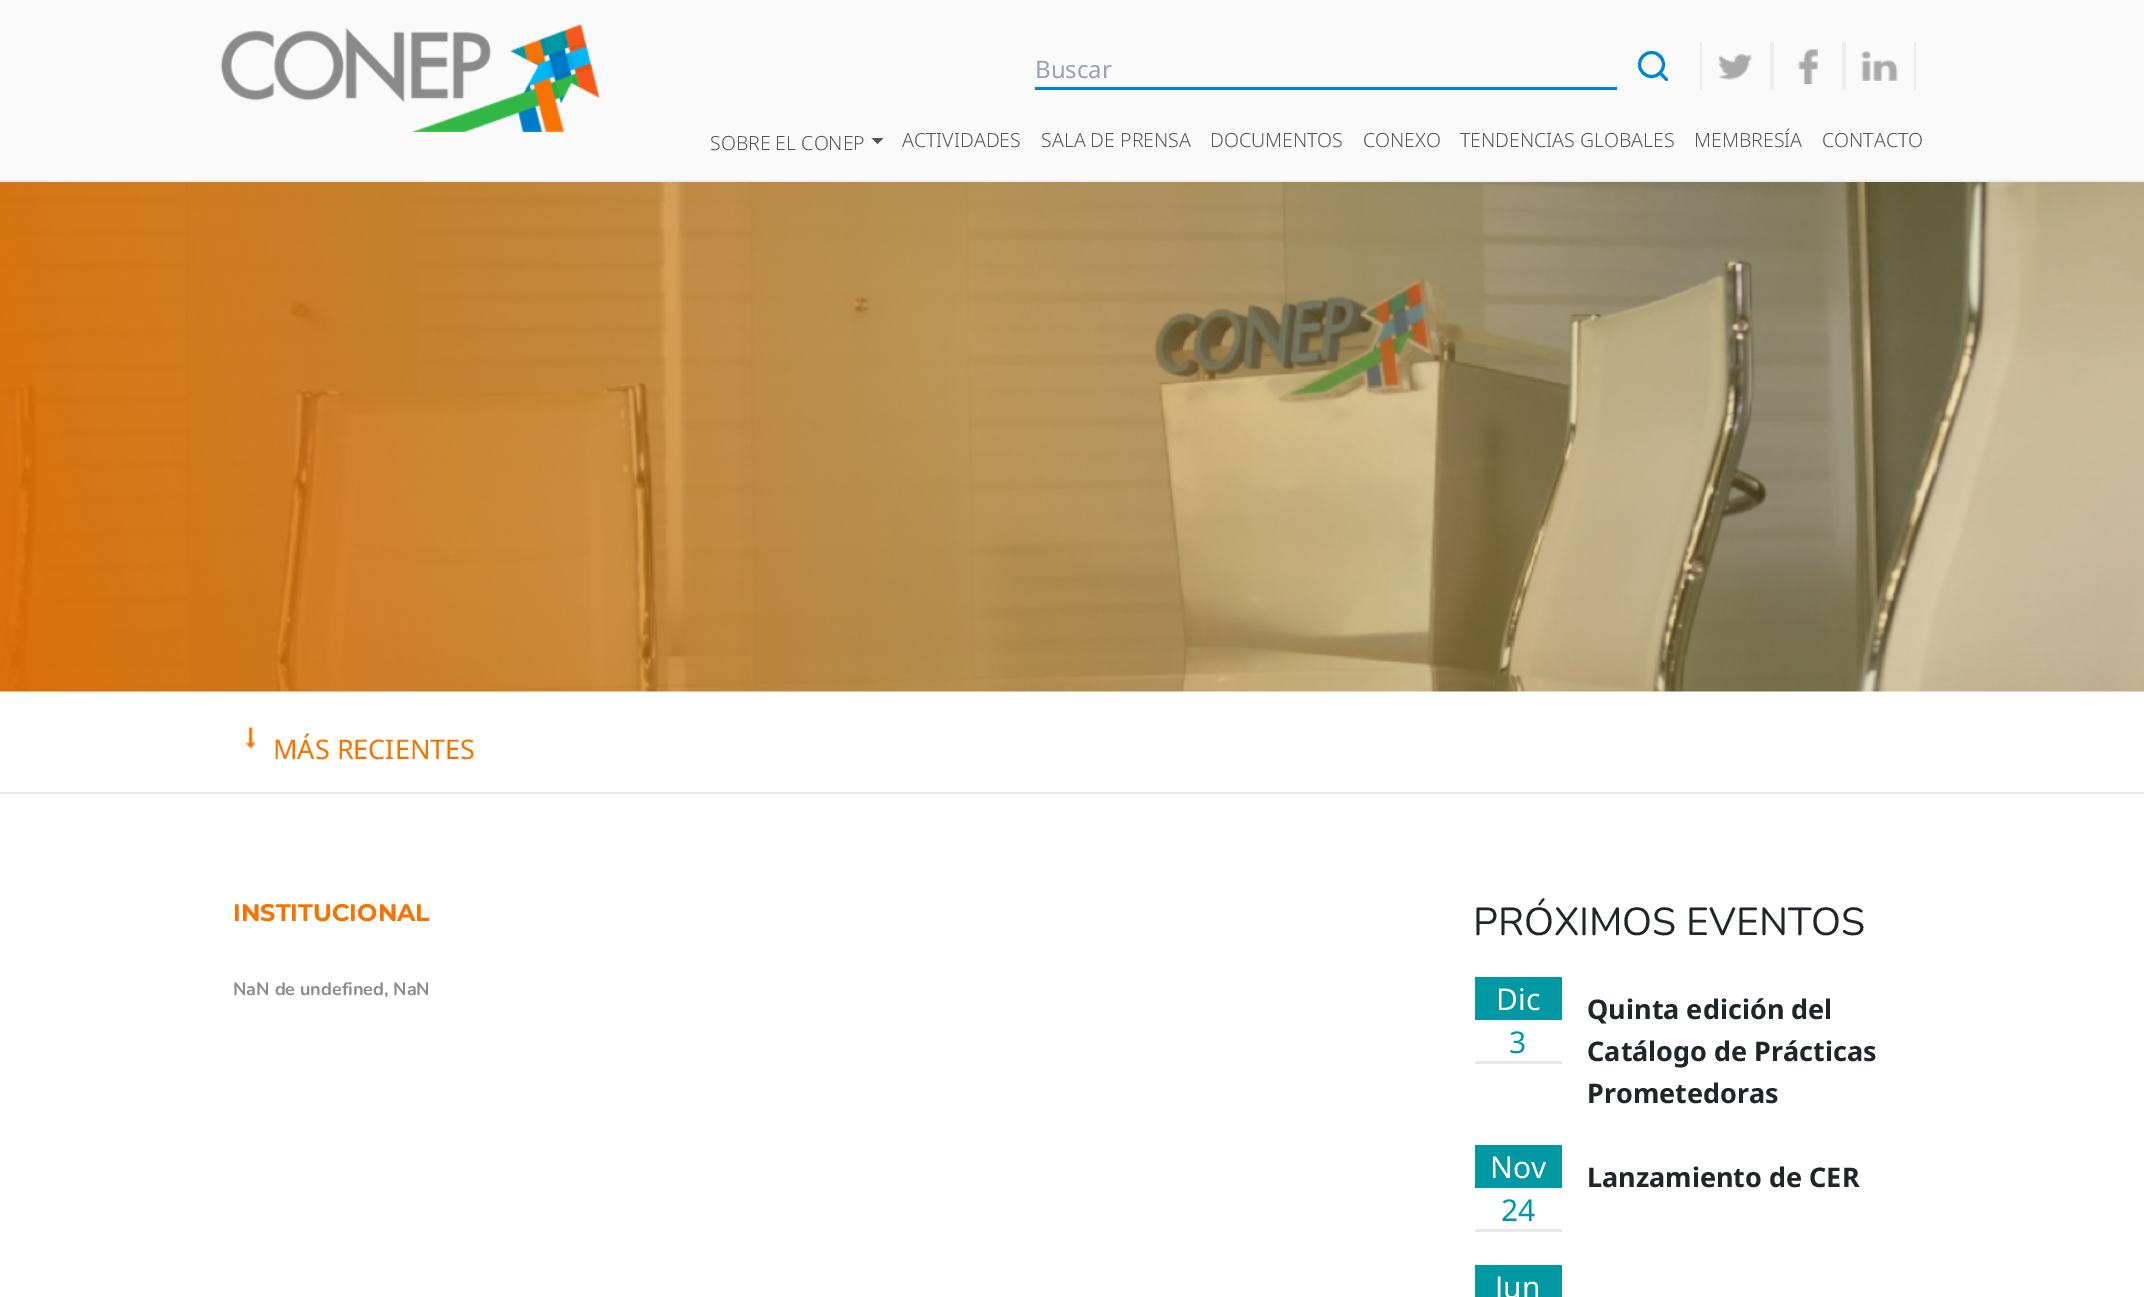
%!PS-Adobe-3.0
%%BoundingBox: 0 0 2144 1297
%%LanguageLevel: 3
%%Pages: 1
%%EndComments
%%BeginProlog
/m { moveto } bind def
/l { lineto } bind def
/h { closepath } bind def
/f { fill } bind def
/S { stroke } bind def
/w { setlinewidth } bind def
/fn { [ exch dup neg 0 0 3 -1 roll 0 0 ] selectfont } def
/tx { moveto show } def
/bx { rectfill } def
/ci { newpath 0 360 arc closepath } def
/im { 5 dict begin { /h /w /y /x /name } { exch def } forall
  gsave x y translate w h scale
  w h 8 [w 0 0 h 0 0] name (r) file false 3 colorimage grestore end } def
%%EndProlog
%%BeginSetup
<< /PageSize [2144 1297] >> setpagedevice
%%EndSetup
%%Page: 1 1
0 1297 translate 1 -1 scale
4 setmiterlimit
1 setgray
0 0 2144 1297 bx
0.98 setgray
0 0 2144 180 bx
0.933 setgray
0 180 2144 2 bx
(image0.raw) 220 23 381 109 im
0 0.522 0.808 setrgbcolor
1035 87 582 3 bx
/NotoSans-Regular 24 fn
0.612 0.639 0.686 setrgbcolor
(Buscar) 1035 78 tx
0 0.522 0.808 setrgbcolor
3 w
1651.5 64.5 12 ci S
1 setlinecap
1 setlinejoin
1666.5 79.5 m 1660 73 l S
0.929 setgray
1770 42 4 48 bx
1700 42 2 48 bx
(image1.raw) 1718 54 35 26 im
1842 42 4 48 bx
(image2.raw) 1798 49 20 35 im
1914 42 2 48 bx
(image3.raw) 1861 51 37 30 im
/NotoSans-Light 19.5 fn
0.329 setgray
(SOBRE EL CONEP) 710 150 tx
871.5 138 m 883.5 138 l 877.5 144 l h f
(ACTIVIDADES) 902 147 tx
(SALA DE PRENSA) 1041 147 tx
(DOCUMENTOS) 1210 147 tx
(CONEXO) 1363 147 tx
(TENDENCIAS GLOBALES) 1460 147 tx
(MEMBRESÍA) 1694 147 tx
(CONTACTO) 1822 147 tx
0.898 0.906 0.922 setrgbcolor
0 792 2144 2 bx
(image4.raw) 0 182 2144 510 im
(image5.raw) 245 727 11 22 im
/NotoSans-Regular 27 fn
0.965 0.451 0 setrgbcolor
(MÁS RECIENTES) 273 759 tx
/Montserrat-Bold 24 fn
(INSTITUCIONAL) 233 921 tx
/Nunito-Bold 18 fn
0.541 0.545 0.541 setrgbcolor
(NaN de undefined, NaN) 233 995 tx
/Nunito-Regular 39 fn
0.129 0.145 0.161 setrgbcolor
(PRÓXIMOS EVENTOS) 1473 935 tx
0 0.596 0.639 setrgbcolor
1475 977 87 43 bx
/NotoSans-Regular 30 fn
1 setgray
(Dic) 1496 1010 tx
0.898 0.906 0.922 setrgbcolor
1475 1061 87 3 bx
0 0.596 0.639 setrgbcolor
(3) 1509 1053 tx
/NotoSans-Bold 27 fn
0.129 0.145 0.161 setrgbcolor
(Quinta edición del) 1587 1019 tx
(Catálogo de Prácticas) 1587 1061 tx
(Prometedoras) 1587 1103 tx
0 0.596 0.639 setrgbcolor
1475 1145 87 43 bx
/NotoSans-Regular 30 fn
1 setgray
(Nov) 1490 1178 tx
0.898 0.906 0.922 setrgbcolor
1475 1229 87 3 bx
0 0.596 0.639 setrgbcolor
(24) 1501 1221 tx
/NotoSans-Bold 27 fn
0.129 0.145 0.161 setrgbcolor
(Lanzamiento de CER) 1587 1187 tx
0 0.596 0.639 setrgbcolor
1475 1265 87 32 bx
/NotoSans-Regular 30 fn
1 setgray
(Jun) 1495 1298 tx
showpage
%%EOF
